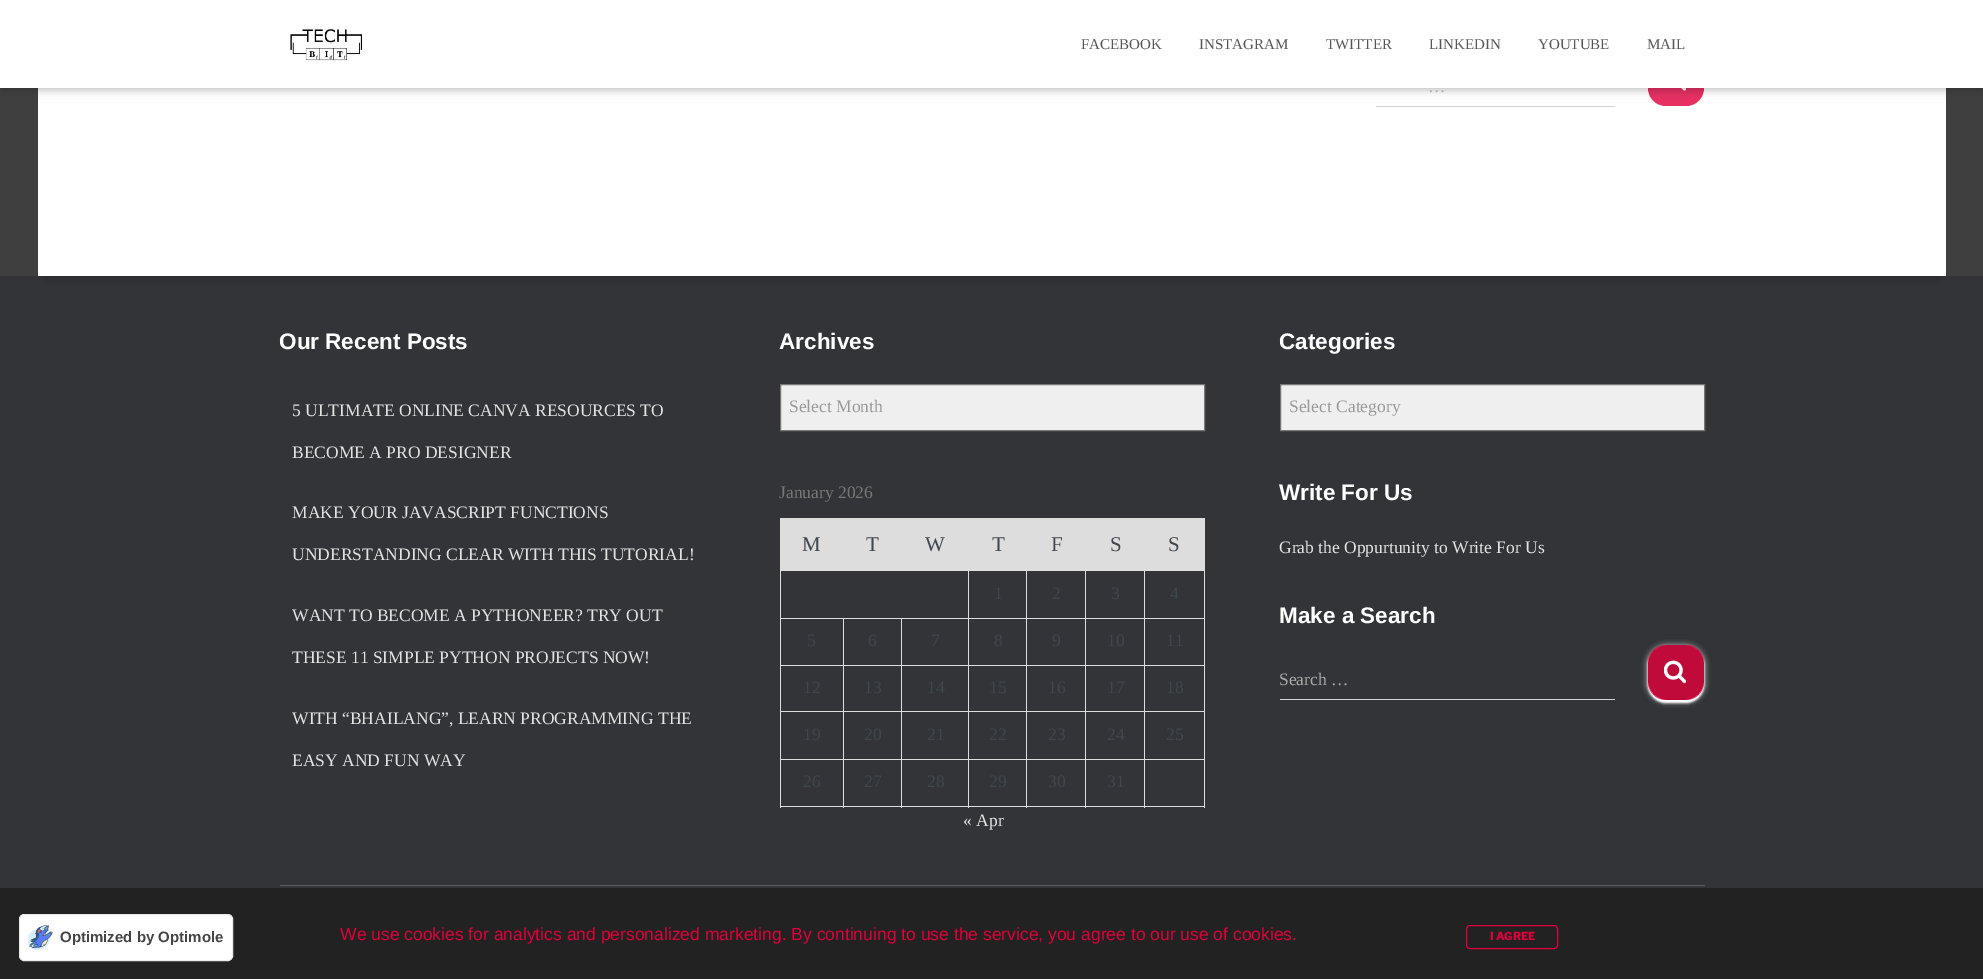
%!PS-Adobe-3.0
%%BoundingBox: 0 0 1983 979
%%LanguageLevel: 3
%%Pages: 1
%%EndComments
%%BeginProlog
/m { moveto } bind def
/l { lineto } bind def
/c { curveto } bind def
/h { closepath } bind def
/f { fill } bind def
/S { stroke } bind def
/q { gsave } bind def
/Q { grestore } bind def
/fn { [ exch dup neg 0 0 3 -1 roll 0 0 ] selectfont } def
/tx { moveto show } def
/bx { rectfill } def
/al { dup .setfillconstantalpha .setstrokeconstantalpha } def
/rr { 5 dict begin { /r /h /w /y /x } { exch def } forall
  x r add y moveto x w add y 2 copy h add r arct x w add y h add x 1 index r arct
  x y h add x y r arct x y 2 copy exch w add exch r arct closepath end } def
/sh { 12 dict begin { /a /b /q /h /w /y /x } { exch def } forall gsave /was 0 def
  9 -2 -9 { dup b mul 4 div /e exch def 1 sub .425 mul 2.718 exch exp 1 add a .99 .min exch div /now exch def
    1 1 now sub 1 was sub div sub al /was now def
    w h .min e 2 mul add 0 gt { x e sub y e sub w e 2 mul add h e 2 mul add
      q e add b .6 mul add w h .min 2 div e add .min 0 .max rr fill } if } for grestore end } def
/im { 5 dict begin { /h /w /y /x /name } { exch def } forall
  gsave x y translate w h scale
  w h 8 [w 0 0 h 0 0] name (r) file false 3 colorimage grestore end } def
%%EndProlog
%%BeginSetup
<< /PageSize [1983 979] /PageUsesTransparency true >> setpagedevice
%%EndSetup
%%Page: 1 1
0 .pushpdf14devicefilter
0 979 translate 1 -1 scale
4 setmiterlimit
0.247 setgray
0 0 1983 979 bx
0.196 0.204 0.216 setrgbcolor
0 276 1983 612 bx
0 setgray
44 -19 1896 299 1 6 0.2 sh
1 setgray
38 88 1908 188 bx
0.902 0.188 0.376 setrgbcolor
1648 53 56 53 18 rr f
(image1.raw) 1681 88 5 3 im
0 setgray
3 8 1978 82 0 3 0.1 sh
0.824 setgray
1376 106 239 1 bx
0 setgray
0 1 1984 88 0 6 0.12 sh
8 9 1968 72 0 6 0.42 sh
1 setgray
0 0 1983 88 bx
(image0.raw) 290 28 73 33 im
/LiberationSerif-Regular 15 fn
0.333 setgray
(FACEBOOK) 1081 49 tx
(INSTAGRAM) 1199 49 tx
(TWITTER) 1326 49 tx
(LINKEDIN) 1429 49 tx
(YOUTUBE) 1538 49 tx
(MAIL) 1647 49 tx
/LiberationSerif-Regular 17.5 fn
0.667 setgray
(…) 1428 92 tx
/LiberationSans-Bold 22.5 fn
1 setgray
(Our Recent Posts) 279 349 tx
/LiberationSerif-Regular 17.5 fn
0.886 0.89 0.89 setrgbcolor
(5 ULTIMATE ONLINE CANVA RESOURCES TO) 292 416 tx
(BECOME A PRO DESIGNER) 292 458 tx
(MAKE YOUR JAVASCRIPT FUNCTIONS) 292 518 tx
(UNDERSTANDING CLEAR WITH THIS TUTORIAL!) 292 560 tx
(WANT TO BECOME A PYTHONEER? TRY OUT) 292 621 tx
(THESE 11 SIMPLE PYTHON PROJECTS NOW!) 292 663 tx
(WITH “BHAILANG”, LEARN PROGRAMMING THE) 292 724 tx
(EASY AND FUN WAY) 292 766 tx
/LiberationSans-Bold 22.5 fn
1 setgray
(Archives) 779 349 tx
0.937 setgray
780.5 384.5 m 1204.5 384.5 l 1204.5 430.5 l 780.5 430.5 l h q f Q
0.463 setgray
S
/LiberationSerif-Regular 17.5 fn
0.6 setgray
(Select Month) 789 412 tx
0.467 setgray
(January 2026) 779 498 tx
0.867 setgray
780 518 365 53 bx
/LiberationSerif-Regular 21 fn
0.251 0.275 0.302 setrgbcolor
(M) 802 551 tx
(T) 866 551 tx
(W) 925 551 tx
(T) 992 551 tx
(F) 1051 551 tx
(S) 1110 551 tx
0.867 setgray
1145 519 59 51 bx
1144 518 61 1 bx
1144 570 61 1 bx
1144 618 61 1 bx
1144 665 61 1 bx
1144 711 61 1 bx
1144 759 61 1 bx
1204 759 1 49 bx
1204 711 1 49 bx
1204 665 1 48 bx
1204 618 1 48 bx
1204 570 1 49 bx
1204 518 1 53 bx
0.251 0.275 0.302 setrgbcolor
(S) 1168 551 tx
0.867 setgray
1144 806 61 1 bx
1144 759 1 49 bx
1085 759 60 1 bx
1144 711 1 49 bx
1085 711 60 1 bx
1144 665 1 48 bx
1085 665 60 1 bx
1144 618 1 48 bx
1085 618 60 1 bx
1085 806 60 1 bx
1085 759 1 49 bx
1026 759 60 1 bx
1085 711 1 49 bx
1026 711 60 1 bx
1085 665 1 48 bx
1026 665 60 1 bx
1085 618 1 48 bx
1026 618 60 1 bx
1026 806 60 1 bx
1026 759 1 49 bx
968 759 60 1 bx
1026 711 1 49 bx
968 711 60 1 bx
1026 665 1 48 bx
968 665 60 1 bx
1026 618 1 48 bx
968 618 60 1 bx
968 806 60 1 bx
968 759 1 49 bx
901 759 68 1 bx
968 711 1 49 bx
901 711 68 1 bx
968 665 1 48 bx
901 665 68 1 bx
968 618 1 48 bx
901 618 68 1 bx
968 570 1 49 bx
/LiberationSerif-Regular 17.5 fn
0.251 0.275 0.302 setrgbcolor
(1) 994 599 tx
0.867 setgray
1026 570 1 49 bx
0.251 0.275 0.302 setrgbcolor
(2) 1052 599 tx
0.867 setgray
1085 570 1 49 bx
0.251 0.275 0.302 setrgbcolor
(3) 1111 599 tx
0.867 setgray
1144 570 1 49 bx
0.251 0.275 0.302 setrgbcolor
(4) 1170 599 tx
0.867 setgray
901 806 68 1 bx
901 759 1 49 bx
843 759 60 1 bx
901 711 1 49 bx
843 711 60 1 bx
901 665 1 48 bx
843 665 60 1 bx
901 618 1 48 bx
843 618 60 1 bx
843 806 60 1 bx
843 759 1 49 bx
780 759 64 1 bx
843 711 1 49 bx
780 711 64 1 bx
843 665 1 48 bx
780 665 64 1 bx
843 618 1 48 bx
780 618 64 1 bx
780 806 64 1 bx
780 759 1 49 bx
780 711 1 49 bx
780 665 1 48 bx
780 570 1 96 bx
0.251 0.275 0.302 setrgbcolor
(5) 807 646 tx
(6) 868 646 tx
(7) 931 646 tx
(8) 994 646 tx
(9) 1052 646 tx
(10) 1107 646 tx
(11) 1166 646 tx
(12) 803 693 tx
(13) 864 693 tx
(14) 927 693 tx
(15) 989 693 tx
(16) 1048 693 tx
(17) 1107 693 tx
(18) 1166 693 tx
(19) 803 740 tx
(20) 864 740 tx
(21) 927 740 tx
(22) 989 740 tx
(23) 1048 740 tx
(24) 1107 740 tx
(25) 1166 740 tx
(26) 803 787 tx
(27) 864 787 tx
(28) 927 787 tx
(29) 989 787 tx
(30) 1048 787 tx
(31) 1107 787 tx
0.886 0.89 0.89 setrgbcolor
(« Apr) 963 826 tx
/LiberationSans-Bold 22.5 fn
1 setgray
(Categories) 1279 349 tx
0.937 setgray
1280.5 384.5 m 1704.5 384.5 l 1704.5 430.5 l 1280.5 430.5 l h q f Q
0.463 setgray
S
/LiberationSerif-Regular 17.5 fn
0.6 setgray
(Select Category) 1289 412 tx
/LiberationSans-Bold 22.5 fn
1 setgray
(Write For Us) 1279 500 tx
/LiberationSerif-Regular 17.5 fn
0.886 0.89 0.89 setrgbcolor
(Grab the Oppurtunity to Write For Us) 1279 553 tx
/LiberationSans-Bold 22.5 fn
1 setgray
(Make a Search) 1279 623 tx
/LiberationSerif-Regular 17.5 fn
0.667 setgray
(Search …) 1279 685 tx
0.824 setgray
1280 699 335 1 bx
q
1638 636 m 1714 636 l 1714 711 l 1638 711 l h 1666 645 m 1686 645 l 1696 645 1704 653 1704 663 c 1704 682 l 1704 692 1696 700 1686 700 c 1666 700 l 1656 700 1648 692 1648 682 c 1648 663 l 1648 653 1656 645 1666 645 c h eoclip newpath
1 setgray
1648 646 56 55 18 3 1 sh
Q
q
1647 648 m 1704 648 l 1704 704 l 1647 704 l h 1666 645 m 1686 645 l 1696 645 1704 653 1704 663 c 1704 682 l 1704 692 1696 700 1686 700 c 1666 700 l 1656 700 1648 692 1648 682 c 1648 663 l 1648 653 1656 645 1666 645 c h eoclip newpath
1 setgray
1650 651 51 50 15 0.5 1 sh
Q
q
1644 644 m 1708 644 l 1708 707 l 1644 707 l h 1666 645 m 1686 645 l 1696 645 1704 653 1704 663 c 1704 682 l 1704 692 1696 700 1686 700 c 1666 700 l 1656 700 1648 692 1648 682 c 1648 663 l 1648 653 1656 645 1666 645 c h eoclip newpath
1 setgray
1648 648 56 55 18 1 1 sh
Q
0.81 al
0.878 0 0.231 setrgbcolor
1648 645 56 55 18 rr f
1 al
(image2.raw) 1664 660 22 24 im
0.357 0.365 0.373 setrgbcolor
280 885 1425 1 bx
0.133 setgray
0 888 1983 91 bx
1 setgray
19.5 914.5 213 46 4.5 rr q f Q
0.914 setgray
S
(image3.raw) 28 925 25 25 im
/LiberationSans-Bold 15 fn
0.267 setgray
(Optimized by Optimole) 60 942 tx
/LiberationSans-Regular 17.5 fn
0.878 0 0.231 setrgbcolor
(We use cookies for analytics and personalized marketing. By continuing to use the service, you agree to our use of cookies.) 340 940 tx
1466.5 925.5 91 23 3.5 rr S
/LibreFranklin-ExtraBold 11 fn
(I AGREE) 1490 940 tx
.poppdf14devicefilter showpage
%%EOF
